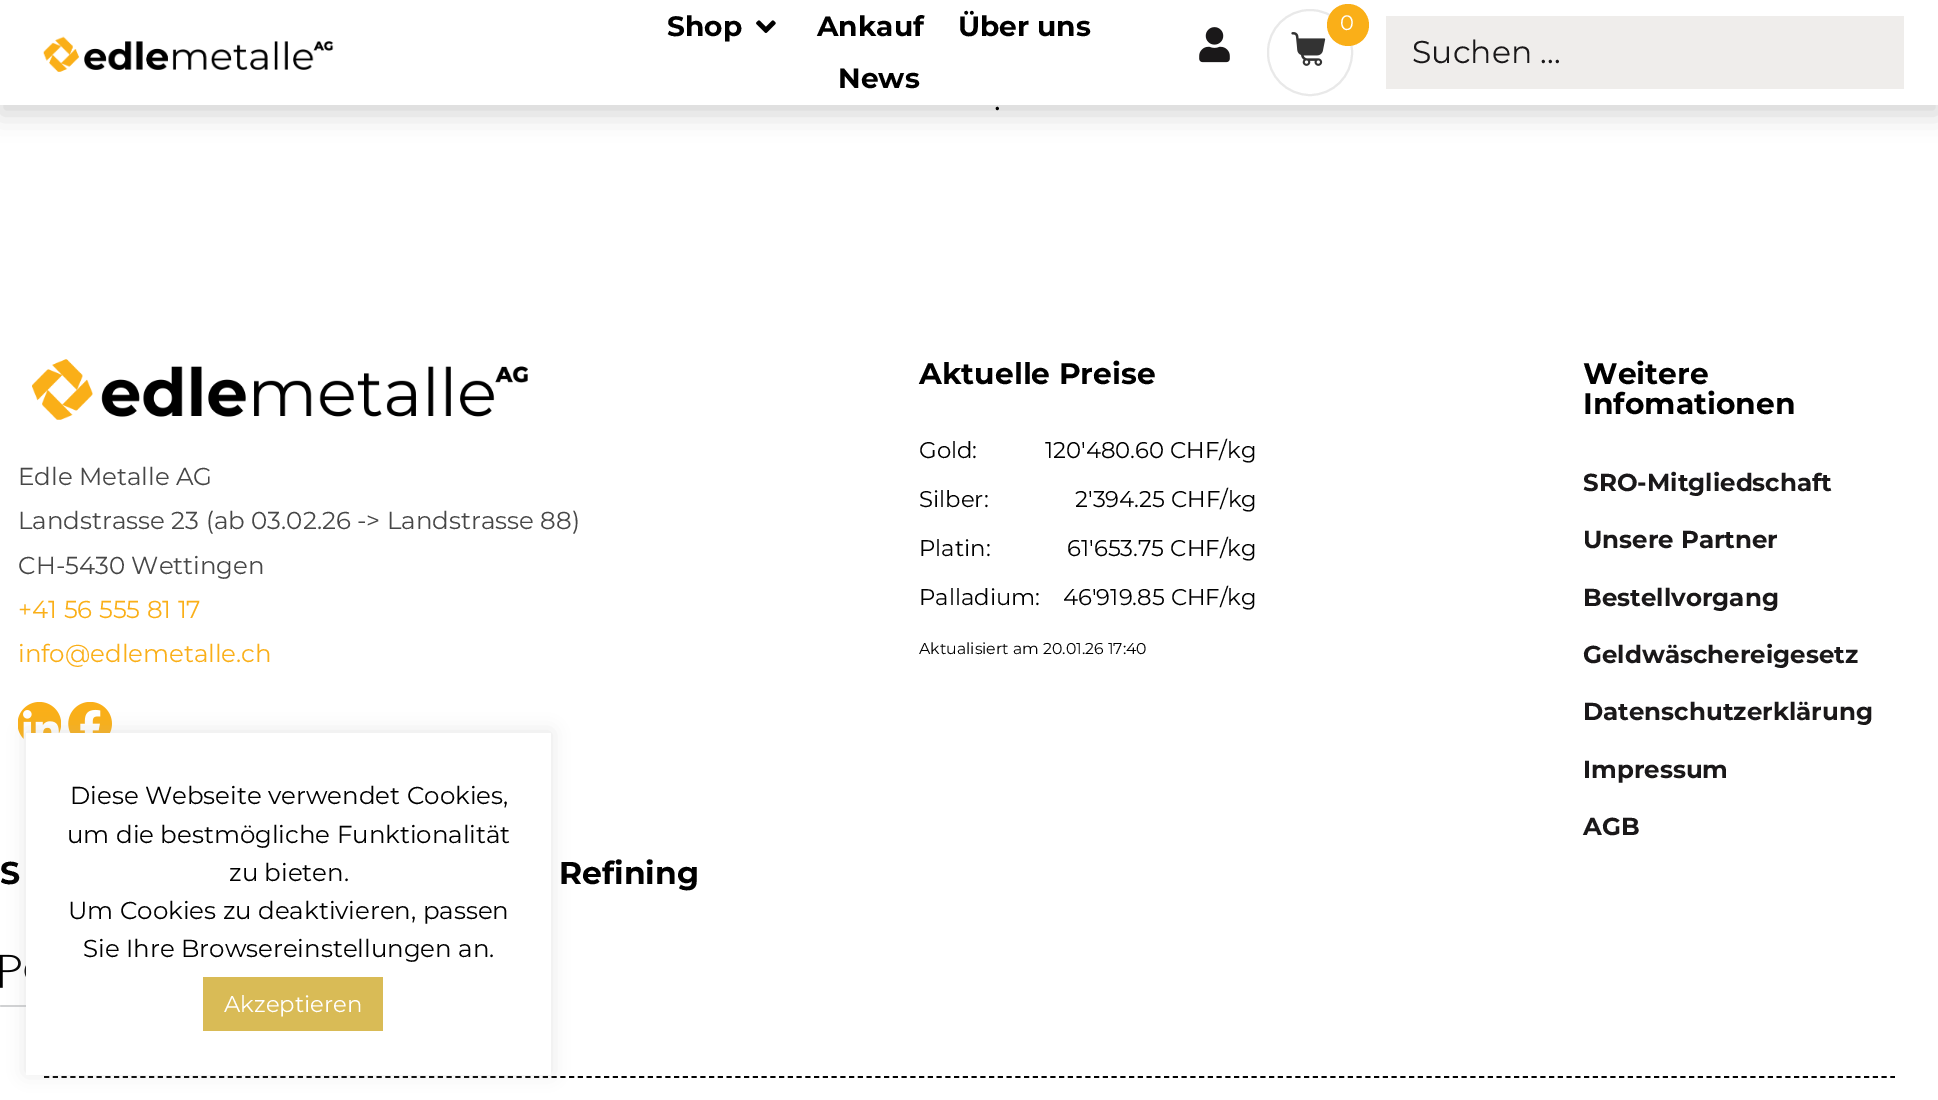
%!PS-Adobe-3.0
%%BoundingBox: 0 0 1938 1100
%%LanguageLevel: 3
%%Pages: 1
%%EndComments
%%BeginProlog
/m { moveto } bind def
/l { lineto } bind def
/f { fill } bind def
/S { stroke } bind def
/w { setlinewidth } bind def
/fn { [ exch dup neg 0 0 3 -1 roll 0 0 ] selectfont } def
/tx { moveto show } def
/bx { rectfill } def
/al { dup .setfillconstantalpha .setstrokeconstantalpha } def
/ci { newpath 0 360 arc closepath } def
/rr { 5 dict begin { /r /h /w /y /x } { exch def } forall
  x r add y moveto x w add y 2 copy h add r arct x w add y h add x 1 index r arct
  x y h add x y r arct x y 2 copy exch w add exch r arct closepath end } def
/sh { 12 dict begin { /a /b /q /h /w /y /x } { exch def } forall gsave /was 0 def
  9 -2 -9 { dup b mul 4 div /e exch def 1 sub .425 mul 2.718 exch exp 1 add a .99 .min exch div /now exch def
    1 1 now sub 1 was sub div sub al /was now def
    w h .min e 2 mul add 0 gt { x e sub y e sub w e 2 mul add h e 2 mul add
      q e add b .6 mul add w h .min 2 div e add .min 0 .max rr fill } if } for grestore end } def
/im { 5 dict begin { /h /w /y /x /name } { exch def } forall
  gsave x y translate w h scale
  w h 8 [w 0 0 h 0 0] name (r) file false 3 colorimage grestore end } def
%%EndProlog
%%BeginSetup
<< /PageSize [1938 1100] /PageUsesTransparency true >> setpagedevice
%%EndSetup
%%Page: 1 1
0 .pushpdf14devicefilter
0 1100 translate 1 -1 scale
4 setmiterlimit
1 setgray
0 0 1938 1100 bx
0 setgray
0 9 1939 105 0 13 0.17 sh
1 setgray
0 0 1938 105 bx
(image0.raw) 43 36 291 36 im
/Montserrat-Bold 28 fn
0 setgray
(Shop) 667 36 tx
(image1.raw) 756 20 20 13 im
(Ankauf) 817 36 tx
(Über uns) 958 36 tx
(News) 838 88 tx
0.914 setgray
2 w
1268 10 84 85 42 rr S
0.98 0.686 0.094 setrgbcolor
1348 25 21 ci f
/Montserrat-Regular 21 fn
1 setgray
(0) 1340 30 tx
(image2.raw) 1291 32 35 34 im
(image3.raw) 1199 27 31 36 im
0.937 0.929 0.922 setrgbcolor
1386 16 518 73 bx
/Montserrat-Regular 31.5 fn
0.102 0.094 0.098 setrgbcolor
(Suchen ...) 1412 63 tx
0 setgray
(.) 994 110 tx
(image4.raw) 32 359 496 61 im
/Montserrat-Regular 24.5 fn
0.278 setgray
(Edle Metalle AG) 18 485 tx
(Landstrasse 23 \(ab 03.02.26 -> Landstrasse 88\)) 18 529 tx
(CH-5430 Wettingen) 18 574 tx
0.98 0.686 0.094 setrgbcolor
(+41 56 555 81 17) 18 618 tx
(info@edlemetalle.ch) 18 662 tx
(image5.raw) 18 702 43 37 im
(image6.raw) 68 702 44 31 im
/Montserrat-Bold 29.75 fn
0 setgray
(Aktuelle Preise) 919 384 tx
/Montserrat-Regular 22.75 fn
(Gold:) 919 458 tx
(120'480.60 CHF/kg) 1045 458 tx
(Silber:) 919 507 tx
(2'394.25 CHF/kg) 1075 507 tx
(Platin:) 919 556 tx
(61'653.75 CHF/kg) 1067 556 tx
(Palladium:) 919 605 tx
(46'919.85 CHF/kg) 1063 605 tx
/Montserrat-Regular 15.75 fn
(Aktualisiert am 20.01.26 17:40) 919 654 tx
/Montserrat-Bold 29.75 fn
(Weitere) 1583 384 tx
(Infomationen) 1583 414 tx
/Montserrat-Bold 24.5 fn
0.102 0.094 0.098 setrgbcolor
(SRO-Mitgliedschaft) 1583 491 tx
(Unsere Partner) 1583 548 tx
(Bestellvorgang) 1583 606 tx
(Geldwäschereigesetz) 1583 663 tx
(Datenschutzerklärung) 1583 720 tx
(Impressum) 1583 778 tx
(AGB) 1583 835 tx
/Montserrat-Bold 31.5 fn
0 setgray
(S) 0 884 tx
(image7.raw) 0 954 26 53 im
(Refining) 559 884 tx
0.012 setgray
1.8 w
[5.25 3.5] 0 setdash
44 1077 m 1895 1077 l S
0.675 0.671 0.671 setrgbcolor
26 732 525 341 0 9 0.3 sh
1 setgray
26 733 525 342 bx
/Montserrat-Regular 24.5 fn
0 setgray
(Diese Webseite verwendet Cookies,) 70 804 tx
(um die bestmögliche Funktionalität) 67 843 tx
(zu bieten.) 229 881 tx
(Um Cookies zu deaktivieren, passen) 68 919 tx
(Sie Ihre Browsereinstellungen an.) 83 957 tx
0.851 0.733 0.337 setrgbcolor
203 977 180 54 bx
/Montserrat-Regular 22.75 fn
1 setgray
(Akzeptieren) 224 1012 tx
.poppdf14devicefilter showpage
%%EOF
